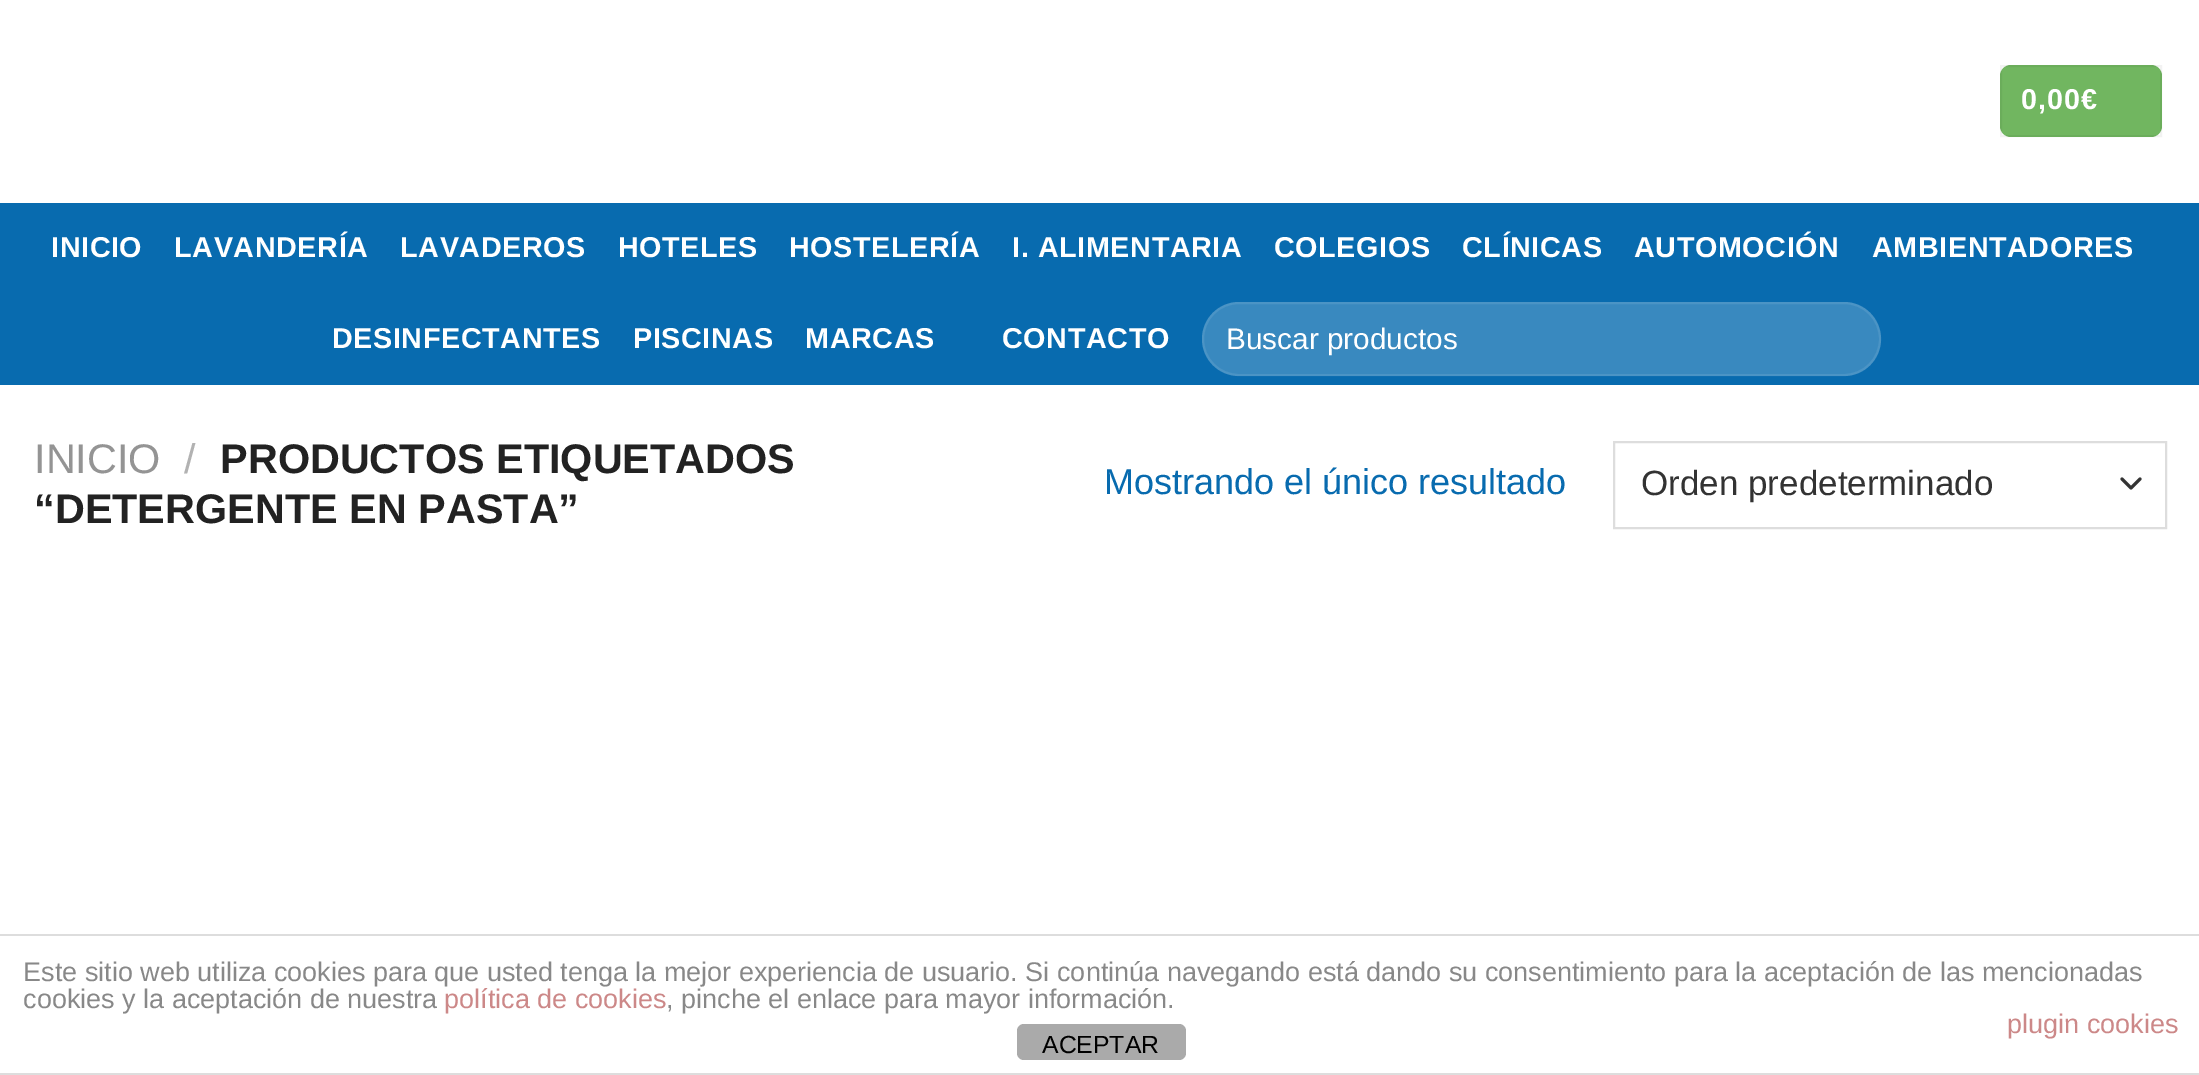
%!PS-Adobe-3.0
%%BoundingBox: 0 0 2199 1075
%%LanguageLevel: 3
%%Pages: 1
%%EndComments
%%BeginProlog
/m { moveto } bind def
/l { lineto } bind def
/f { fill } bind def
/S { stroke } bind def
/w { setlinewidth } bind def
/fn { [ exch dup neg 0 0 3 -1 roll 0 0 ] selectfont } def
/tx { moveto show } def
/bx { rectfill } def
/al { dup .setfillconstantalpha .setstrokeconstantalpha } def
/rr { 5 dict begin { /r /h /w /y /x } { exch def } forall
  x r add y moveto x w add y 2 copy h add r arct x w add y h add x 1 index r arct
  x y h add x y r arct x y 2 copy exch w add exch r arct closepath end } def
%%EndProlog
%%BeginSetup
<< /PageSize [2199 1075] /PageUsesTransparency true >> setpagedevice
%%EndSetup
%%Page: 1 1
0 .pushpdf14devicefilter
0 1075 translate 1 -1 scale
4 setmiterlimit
1 setgray
0 0 2199 1075 bx
0.443 0.714 0.376 setrgbcolor
2000 65 162 72 11 rr f
0.05 al
0 setgray
2 w
2001 66 160 70 rectstroke
/LiberationSans-Bold 28.75 fn
1 al
1 setgray
2021 109 m 1 0 (0,00€) ashow
0.031 0.42 0.686 setrgbcolor
0 203 2199 182 bx
1 setgray
51 257 m 0.6 0 (INICIO) ashow
174 257 m 0.6 0 (LAVANDERÍA) ashow
400 257 m 0.6 0 (LAVADEROS) ashow
618 257 m 0.6 0 (HOTELES) ashow
789 257 m 0.6 0 (HOSTELERÍA) ashow
1012 257 m 0.6 0 (I. ALIMENTARIA) ashow
1274 257 m 0.6 0 (COLEGIOS) ashow
1462 257 m 0.6 0 (CLÍNICAS) ashow
1634 257 m 0.6 0 (AUTOMOCIÓN) ashow
1872 257 m 0.6 0 (AMBIENTADORES) ashow
332 348 m 0.6 0 (DESINFECTANTES) ashow
633 348 m 0.6 0 (PISCINAS) ashow
805 348 m 0.6 0 (MARCAS) ashow
1002 348 m 0.6 0 (CONTACTO) ashow
0.224 0.537 0.749 setrgbcolor
1202 302 679 74 37 rr f
0.09 al
1 setgray
1203 303 677 72 36 rr S
/LiberationSans-Regular 29.75 fn
1 al
(Buscar productos) 1226 349 tx
/LiberationSans-Regular 41.4 fn
0.58 setgray
(INICIO) 34 473 tx
0.698 setgray
(/) 184 473 tx
/LiberationSans-Bold 41.4 fn
0.133 setgray
(PRODUCTOS ETIQUETADOS) 220 473 tx
(“DETERGENTE EN PASTA”) 34 523 tx
/LiberationSans-Regular 36 fn
0.031 0.42 0.686 setrgbcolor
(Mostrando el único resultado) 1104 494 tx
0.2 setgray
3 w
1 setlinecap
1 setlinejoin
2122 479 m 2131 488 l 2140 479 l S
0.867 setgray
2 w
0 setlinecap
0 setlinejoin
1614 442 552 86 rectstroke
/LiberationSans-Regular 35 fn
0.2 setgray
(Orden predeterminado) 1641 495 tx
0.867 setgray
0 934 2199 2 bx
0 1073 2199 2 bx
/LiberationSans-Regular 27 fn
0.533 setgray
(Este sitio web utiliza cookies para que usted tenga la mejor experiencia de usuario. Si continúa navegando está dando su consentimiento para la aceptación de las mencionadas) 23 981 tx
(cookies y la aceptación de nuestra) 23 1008 tx
0.8 0.533 0.533 setrgbcolor
(política de cookies) 444 1008 tx
0.533 setgray
(, pinche el enlace para mayor información.) 666 1008 tx
0.8 0.533 0.533 setrgbcolor
(plugin cookies) 2007 1033 tx
0.667 setgray
1017 1024 169 36 7 rr f
/LiberationSans-Regular 24.75 fn
0 setgray
(ACEPTAR) 1042 1053 tx
.poppdf14devicefilter showpage
%%EOF
